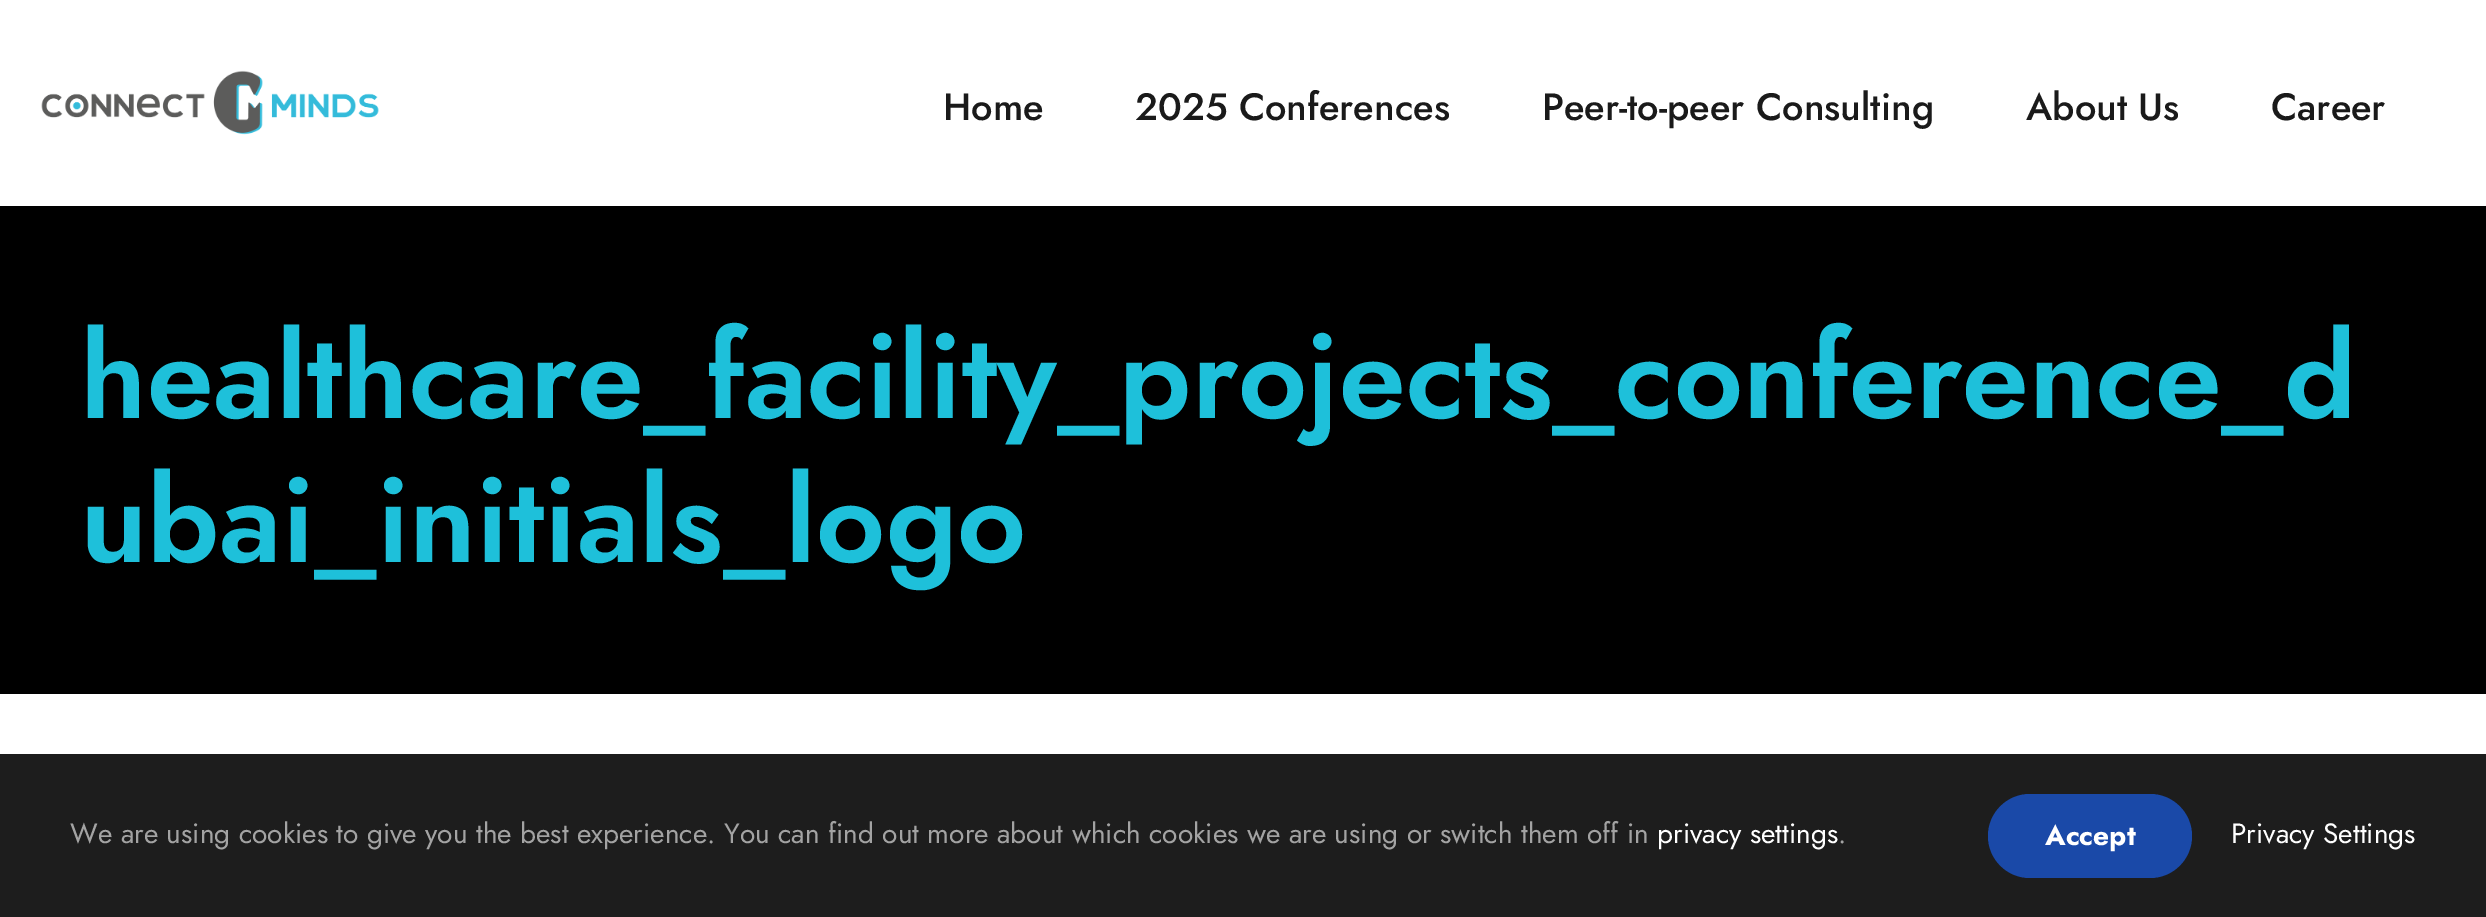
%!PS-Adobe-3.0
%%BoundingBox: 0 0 2486 917
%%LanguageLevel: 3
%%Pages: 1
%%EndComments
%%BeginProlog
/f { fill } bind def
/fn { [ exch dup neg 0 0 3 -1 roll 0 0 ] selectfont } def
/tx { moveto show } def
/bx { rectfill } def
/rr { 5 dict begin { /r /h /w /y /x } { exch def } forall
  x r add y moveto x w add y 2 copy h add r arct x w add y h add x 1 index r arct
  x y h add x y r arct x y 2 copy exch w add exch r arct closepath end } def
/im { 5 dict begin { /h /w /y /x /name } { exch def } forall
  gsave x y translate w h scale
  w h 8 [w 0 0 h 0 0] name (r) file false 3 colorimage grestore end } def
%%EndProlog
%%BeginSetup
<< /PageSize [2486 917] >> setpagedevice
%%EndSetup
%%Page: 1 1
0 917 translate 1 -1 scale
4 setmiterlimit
1 setgray
0 0 2486 917 bx
(image0.raw) 41 70 338 65 im
/Jost-Medium 38 fn
0.102 setgray
(Home) 943 120 tx
(2025 Conferences) 1135 120 tx
(Peer-to-peer Consulting) 1542 120 tx
(About Us) 2026 120 tx
(Career) 2271 120 tx
0 setgray
0 206 2486 488 bx
/Jost-SemiBold 120 fn
0.118 0.753 0.855 setrgbcolor
(healthcare_facility_projects_conference_d) 80 418 tx
(ubai_initials_logo) 80 562 tx
0.114 setgray
0 754 2486 163 bx
/Jost-Regular 28 fn
0.639 setgray
(We are using cookies to give you the best experience. You can find out more about which cookies we are using or switch them off in) 70 843 tx
1 setgray
(privacy settings) 1657 843 tx
0.639 setgray
(.) 1838 843 tx
0.102 0.286 0.659 setrgbcolor
1988 794 204 84 42 rr f
/Jost-Bold 28 fn
1 setgray
(Accept) 2045 845 tx
/Jost-Regular 28 fn
(Privacy Settings) 2231 843 tx
showpage
%%EOF
